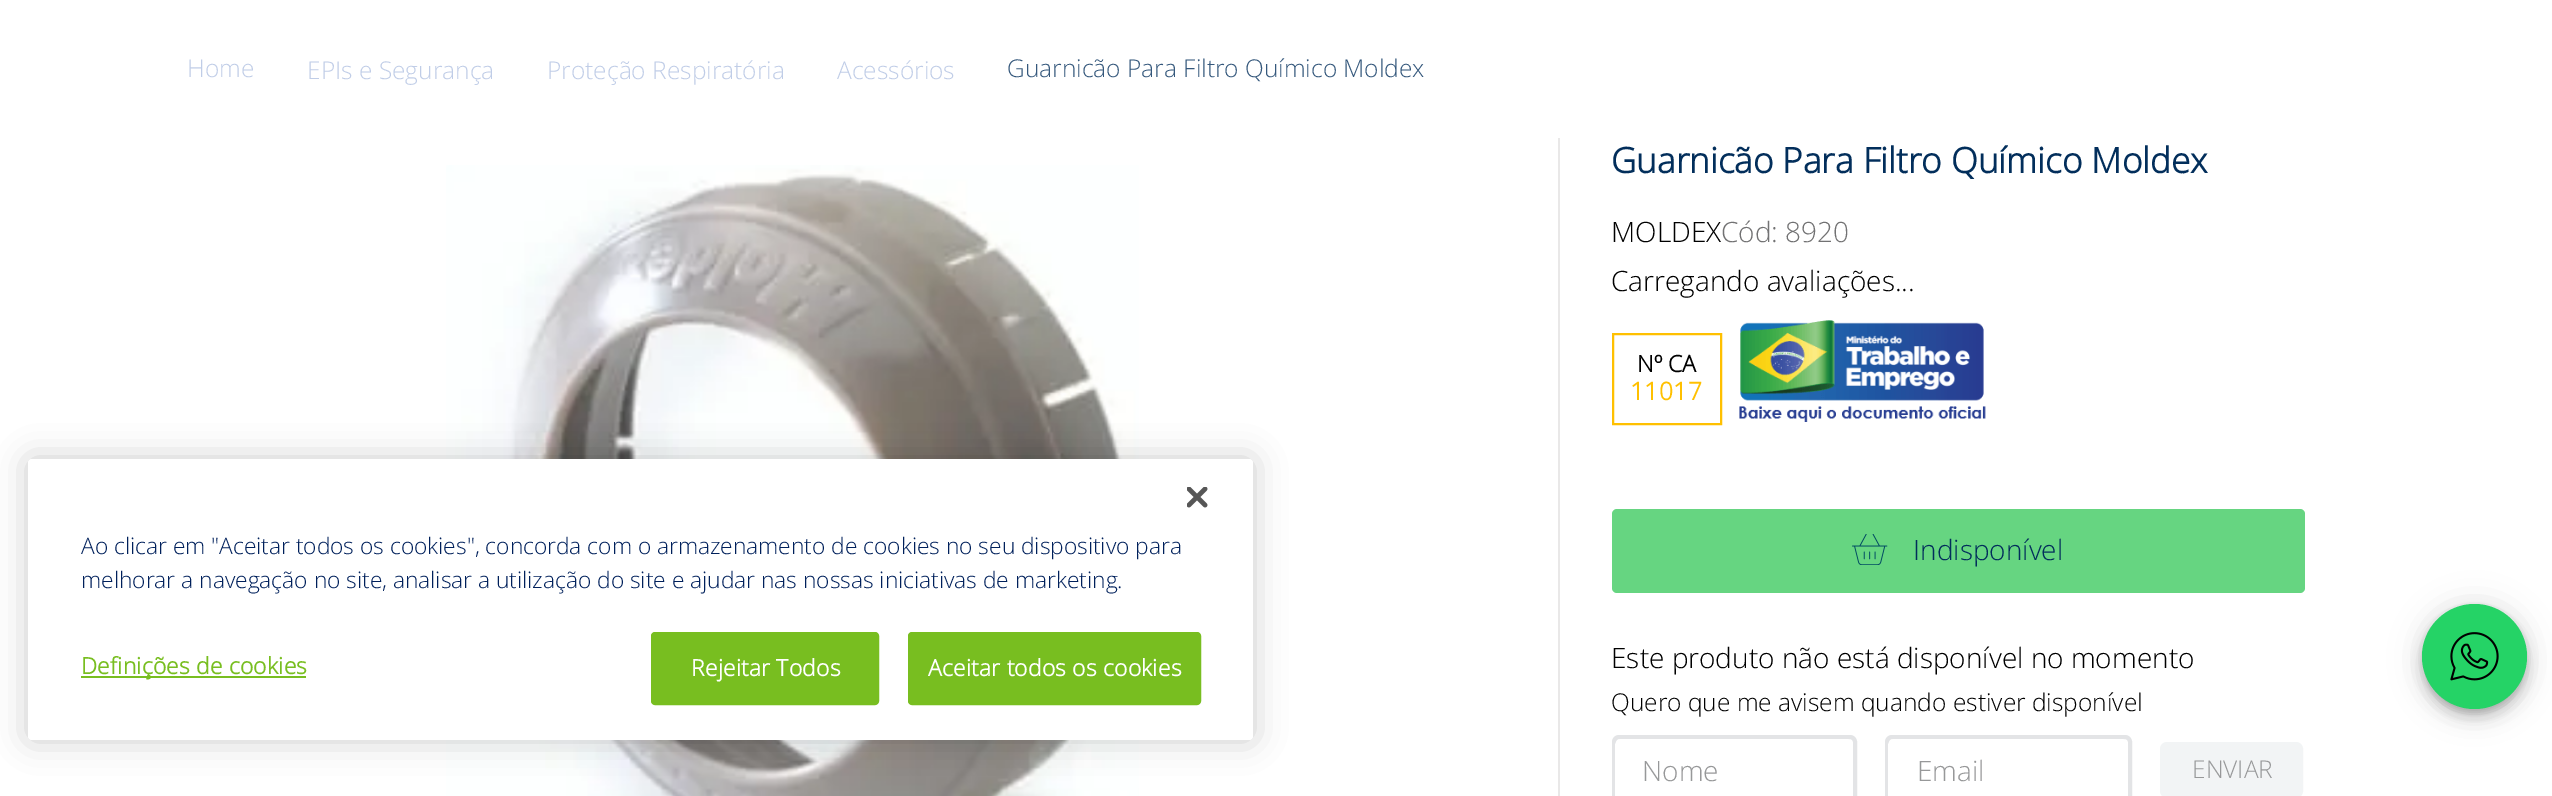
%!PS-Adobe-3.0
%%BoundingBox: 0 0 2552 796
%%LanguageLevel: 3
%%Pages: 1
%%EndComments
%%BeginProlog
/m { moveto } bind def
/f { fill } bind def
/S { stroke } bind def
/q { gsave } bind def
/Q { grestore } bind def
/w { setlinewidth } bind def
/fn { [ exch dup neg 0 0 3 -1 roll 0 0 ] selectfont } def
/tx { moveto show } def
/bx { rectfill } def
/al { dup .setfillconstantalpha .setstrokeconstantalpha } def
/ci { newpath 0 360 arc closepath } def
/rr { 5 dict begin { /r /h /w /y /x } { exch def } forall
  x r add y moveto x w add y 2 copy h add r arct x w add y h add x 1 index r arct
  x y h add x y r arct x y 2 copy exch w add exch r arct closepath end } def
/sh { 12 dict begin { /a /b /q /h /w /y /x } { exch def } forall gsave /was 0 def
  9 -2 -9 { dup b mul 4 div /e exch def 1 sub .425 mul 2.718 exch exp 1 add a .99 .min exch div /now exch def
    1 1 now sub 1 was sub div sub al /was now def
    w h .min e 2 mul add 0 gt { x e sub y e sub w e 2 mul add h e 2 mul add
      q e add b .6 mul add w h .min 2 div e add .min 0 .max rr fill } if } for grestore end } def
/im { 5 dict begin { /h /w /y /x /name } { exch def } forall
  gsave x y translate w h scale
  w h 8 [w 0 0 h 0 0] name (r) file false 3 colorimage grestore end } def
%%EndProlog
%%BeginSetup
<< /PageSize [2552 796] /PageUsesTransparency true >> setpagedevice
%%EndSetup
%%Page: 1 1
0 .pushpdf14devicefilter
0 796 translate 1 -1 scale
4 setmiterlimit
1 setgray
0 0 2552 796 bx
/OpenSans-Light 24.5 fn
0.753 0.804 0.906 setrgbcolor
(Home) 187 77 tx
(EPIs e Segurança) 307 79 tx
(Proteção Respiratória) 547 79 tx
(Acessórios) 837 79 tx
0.208 0.345 0.486 setrgbcolor
(Guarnicão Para Filtro Químico Moldex) 1007 77 tx
(image0.raw) 446 165 693 631 im
0.914 0.91 0.91 setrgbcolor
1558 138 2 658 bx
/OpenSans-Bold 35 fn
0.008 0.18 0.357 setrgbcolor
(Guarnicão Para Filtro Químico Moldex) 1611 173 tx
/OpenSans-Light 28 fn
0 setgray
(MOLDEX) 1611 242 tx
0.447 0.447 0.451 setrgbcolor
(Cód: 8920) 1721 242 tx
0 setgray
(Carregando avaliações...) 1611 291 tx
1 0.753 0 setrgbcolor
2 w
1613 334 108 90 rectstroke
/OpenSans-Bold 23 fn
0 setgray
(Nº CA) 1637 372 tx
/OpenSans-Bold 24.5 fn
1 0.753 0 setrgbcolor
1630 400 m 0.5 0 (11017) ashow
(image1.raw) 1739 320 247 102 im
0.4 0.835 0.506 setrgbcolor
1612 509 693 84 5 rr f
(image2.raw) 1852 534 36 31 im
/OpenSans-Light 28 fn
0.008 0.18 0.357 setrgbcolor
(Indisponível) 1913 560 tx
0 setgray
(Este produto não está disponível no momento) 1611 668 tx
/OpenSans-Light 24.5 fn
(Quero que me avisem quando estiver disponível) 1611 711 tx
0.89 0.894 0.902 setrgbcolor
4 w
1614 737 241 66 5 rr S
1 setgray
1615 739 238 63 7 rr f
/OpenSans-Light 28 fn
0.592 0.596 0.6 setrgbcolor
(Nome) 1642 781 tx
0.89 0.894 0.902 setrgbcolor
1887 737 243 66 5 rr S
1 setgray
1888 739 240 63 7 rr f
0.592 0.596 0.6 setrgbcolor
(Email) 1917 781 tx
0.949 0.957 0.961 setrgbcolor
2162 744 139 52 5 rr q f Q
S
/OpenSans-Light 24.5 fn
0.592 0.596 0.6 setrgbcolor
(ENVIAR) 2192 778 tx
0 setgray
28 459 1225 281 4 16 0.2 sh
1 setgray
28 459 1225 281 4 rr f
(image3.raw) 1187 487 21 21 im
/OpenSans-Light 22.75 fn
0 0.125 0.357 setrgbcolor
(Ao clicar em "Aceitar todos os cookies", concorda com o armazenamento de cookies no seu dispositivo para) 81 554 tx
(melhorar a navegação no site, analisar a utilização do site e ajudar nas nossas iniciativas de marketing.) 81 588 tx
0.471 0.745 0.125 setrgbcolor
81 676 225 2 bx
/OpenSans-Bold 22.75 fn
81 674 m 0.25 0 (Definições de cookies) ashow
652 633 226 71 3 rr q f Q
2 w
S
1 setgray
691 676 m 0.25 0 (Rejeitar Todos) ashow
0.471 0.745 0.125 setrgbcolor
909 633 291 71 3 rr q f Q
S
1 setgray
928 676 m 0.25 0 (Aceitar todos os cookies) ashow
0 setgray
2422 606 105 105 52.5 16 0.12 sh
2422 614 105 105 52.5 9 0.14 sh
2424 611 101 101 50.5 4.5 0.2 sh
0.145 0.827 0.4 setrgbcolor
2474.5 656.5 52.5 ci f
(image4.raw) 2450 632 49 49 im
.poppdf14devicefilter showpage
%%EOF
